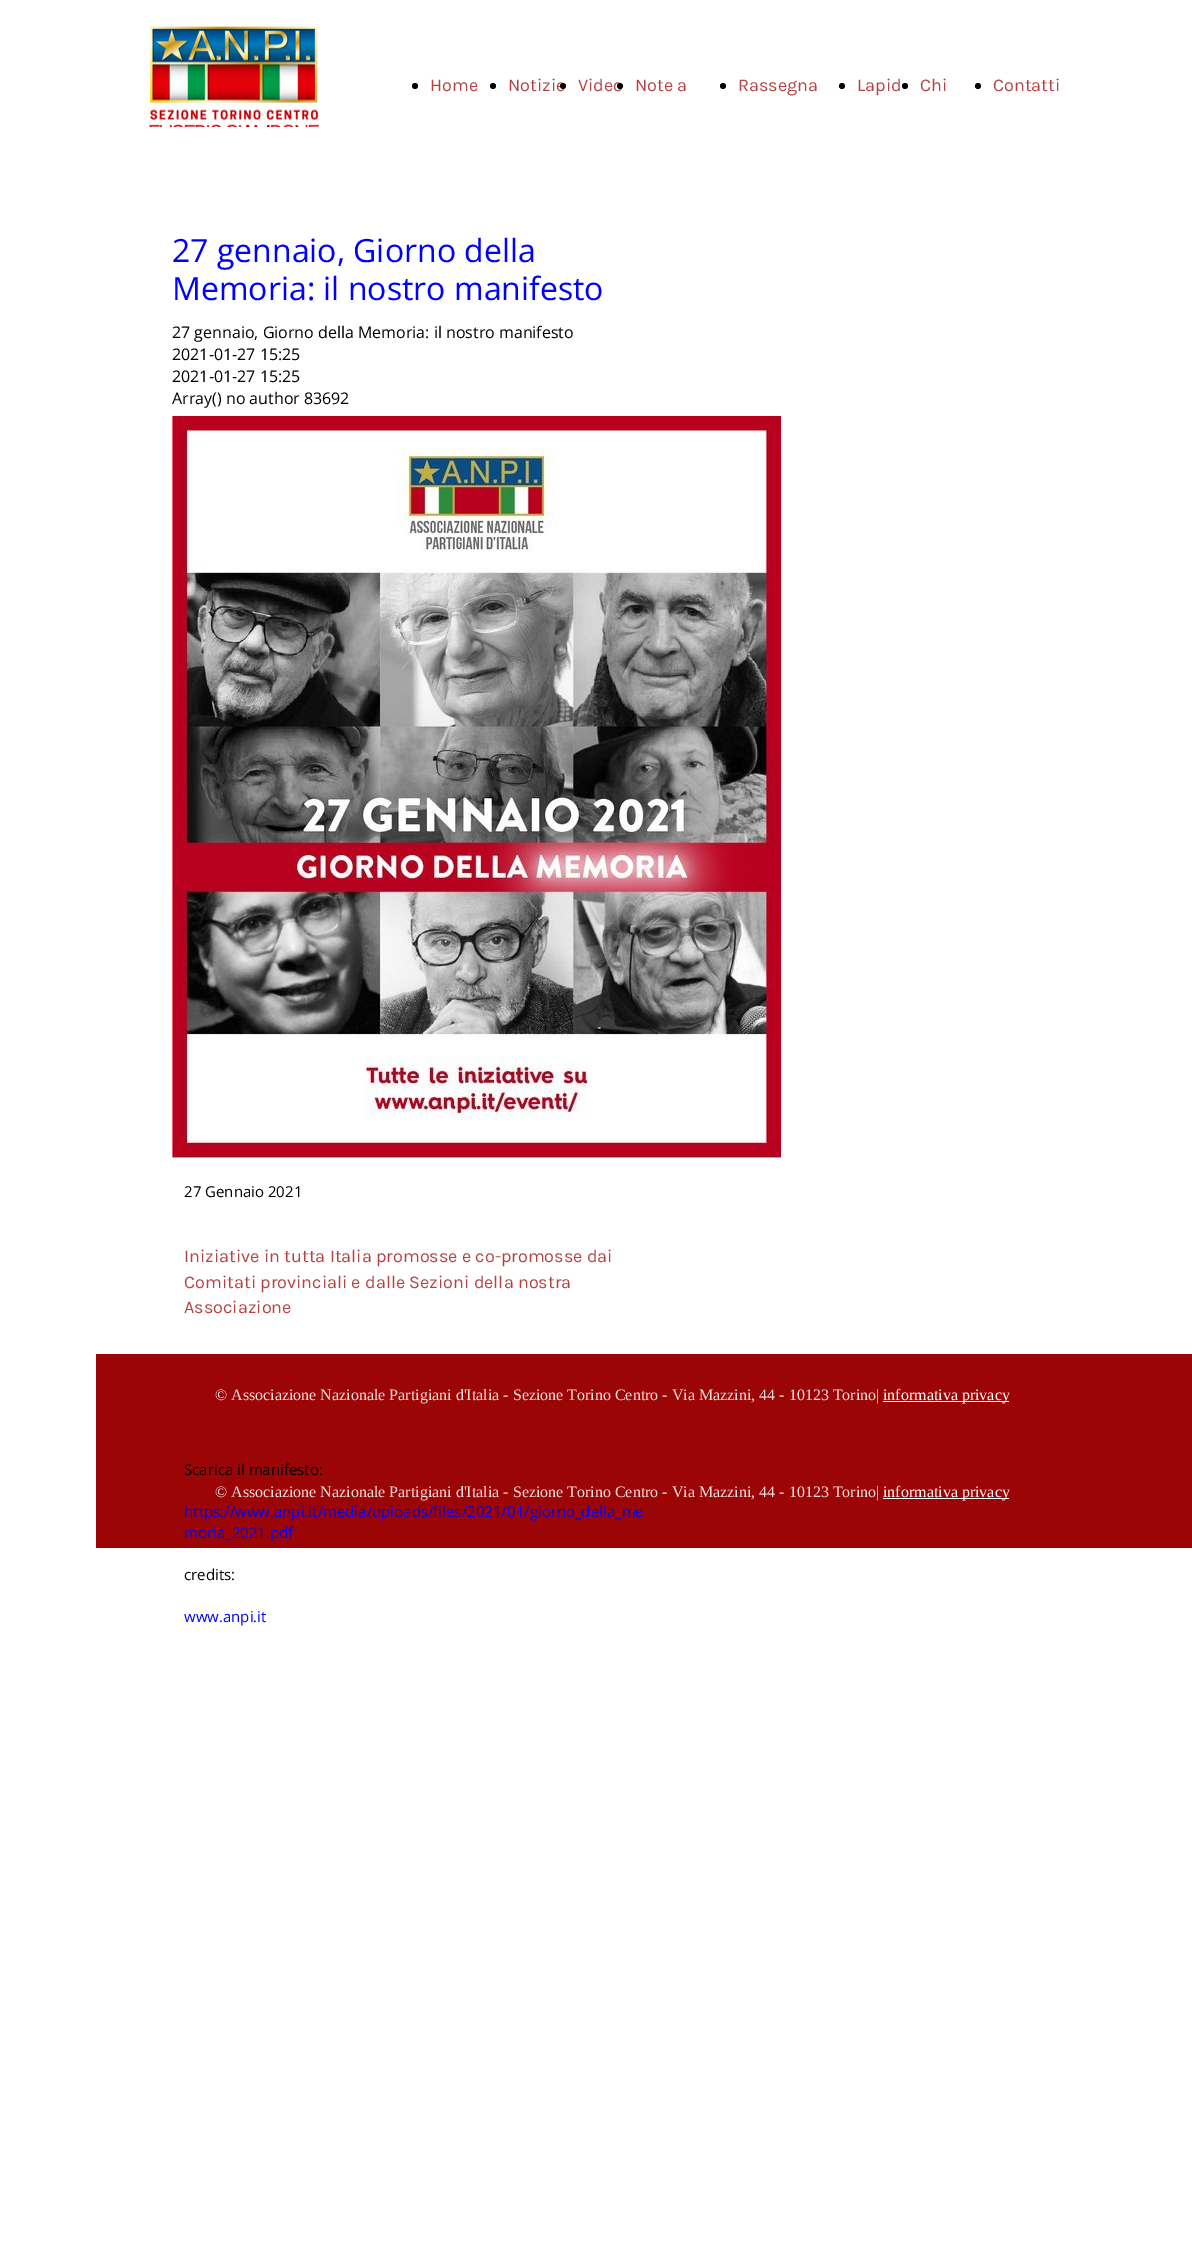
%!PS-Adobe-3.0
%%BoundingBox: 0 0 1192 2267
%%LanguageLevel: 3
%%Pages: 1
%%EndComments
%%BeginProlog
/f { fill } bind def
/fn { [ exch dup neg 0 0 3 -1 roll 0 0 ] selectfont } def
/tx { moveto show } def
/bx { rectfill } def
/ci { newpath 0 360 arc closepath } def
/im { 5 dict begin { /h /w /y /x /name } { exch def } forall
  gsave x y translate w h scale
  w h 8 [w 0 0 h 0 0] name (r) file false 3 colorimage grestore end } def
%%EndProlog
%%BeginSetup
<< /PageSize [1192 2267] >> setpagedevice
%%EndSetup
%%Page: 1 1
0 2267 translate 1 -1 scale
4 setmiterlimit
1 setgray
0 0 1192 2267 bx
(image0.raw) 149 26 170 101 im
0 setgray
415 86 3 ci f
/Karla-Regular 18 fn
0.706 0.267 0.267 setrgbcolor
(Home) 430 91 tx
0 setgray
493 86 3 ci f
0.706 0.267 0.267 setrgbcolor
(Notizie) 508 91 tx
0 setgray
563 86 3 ci f
0.706 0.267 0.267 setrgbcolor
(Video) 578 91 tx
0 setgray
620 86 3 ci f
0.706 0.267 0.267 setrgbcolor
(Note a) 635 91 tx
0 setgray
723 86 3 ci f
0.706 0.267 0.267 setrgbcolor
(Rassegna) 738 91 tx
0 setgray
842 86 3 ci f
0.706 0.267 0.267 setrgbcolor
(Lapid) 857 91 tx
0 setgray
905 86 3 ci f
0.706 0.267 0.267 setrgbcolor
(Chi) 920 91 tx
0 setgray
978 86 3 ci f
0.706 0.267 0.267 setrgbcolor
(Contatti) 993 91 tx
/OpenSans-Regular 32 fn
0 0 1 setrgbcolor
(27 gennaio, Giorno della) 172 262 tx
(Memoria: il nostro manifesto) 172 300 tx
/OpenSans-Regular 16 fn
0 setgray
(27 gennaio, Giorno della Memoria: il nostro manifesto) 172 338 tx
(2021-01-27 15:25) 172 360 tx
(2021-01-27 15:25) 172 382 tx
(Array\(\) no author 83692) 172 404 tx
(image1.raw) 172 416 609 742 im
/OpenSans-Regular 15 fn
(27 Gennaio 2021) 184 1197 tx
/Karla-Regular 18 fn
0.706 0.267 0.267 setrgbcolor
(Iniziative in tutta Italia promosse e co-promosse dai) 184 1262 tx
(Comitati provinciali e dalle Sezioni della nostra) 184 1288 tx
(Associazione) 184 1313 tx
0.608 0.02 0.02 setrgbcolor
96 1354 1096 194 bx
/OpenSans-Regular 15 fn
0 setgray
(Scarica il manifesto:) 184 1475 tx
0 0 1 setrgbcolor
(https://www.anpi.it/media/uploads/files/2021/01/giorno_della_me) 184 1517 tx
(moria_2021.pdf) 184 1538 tx
0 setgray
(credits:) 184 1580 tx
0 0 1 setrgbcolor
(www.anpi.it) 184 1622 tx
/LiberationSerif-Regular 16 fn
0.953 0.878 0.878 setrgbcolor
(© Associazione Nazionale Partigiani d'Italia - Sezione Torino Centro - Via Mazzini, 44 - 10123 Torino|) 215 1400 tx
1 setgray
883 1401 126 1 bx
(informativa privacy) 883 1400 tx
0.953 0.878 0.878 setrgbcolor
(© Associazione Nazionale Partigiani d'Italia - Sezione Torino Centro - Via Mazzini, 44 - 10123 Torino|) 215 1497 tx
1 setgray
883 1498 126 1 bx
(informativa privacy) 883 1497 tx
showpage
%%EOF
